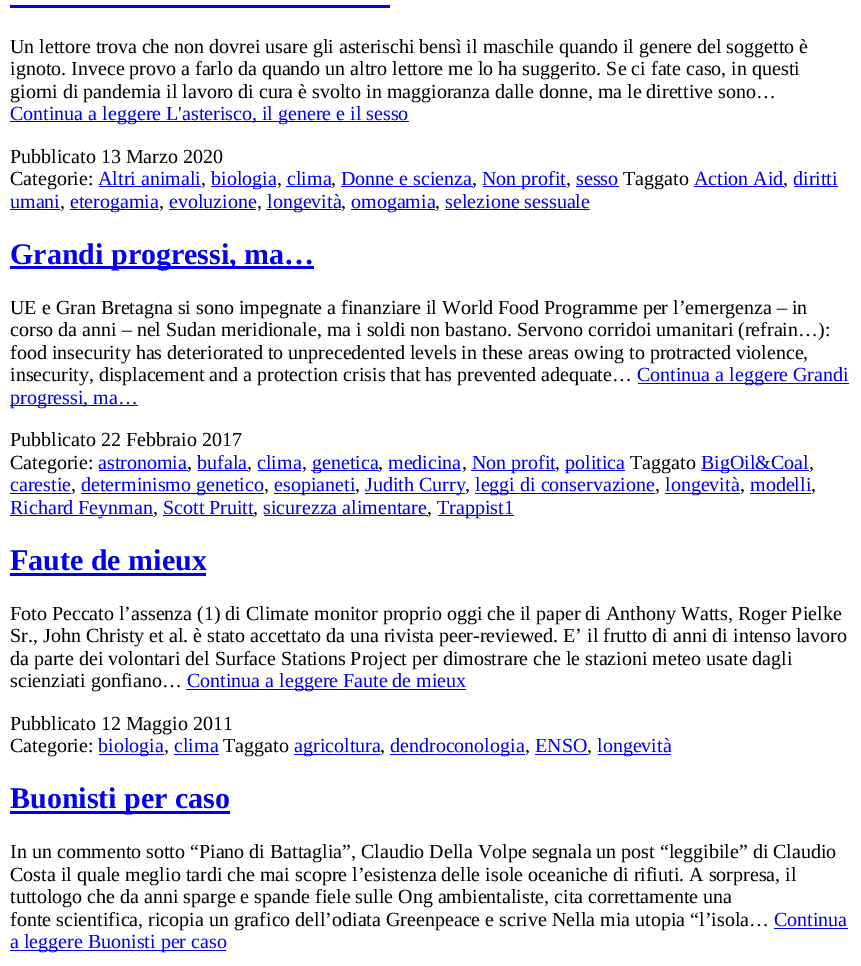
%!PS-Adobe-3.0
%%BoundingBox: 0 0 861 966
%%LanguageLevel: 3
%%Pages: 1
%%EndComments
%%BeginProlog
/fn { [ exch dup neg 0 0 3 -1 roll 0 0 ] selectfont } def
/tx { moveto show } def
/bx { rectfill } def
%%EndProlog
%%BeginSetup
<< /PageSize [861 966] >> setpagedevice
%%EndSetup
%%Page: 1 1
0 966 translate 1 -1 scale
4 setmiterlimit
1 setgray
0 0 861 966 bx
0 0 0.933 setrgbcolor
10 5 380 3 bx
/LiberationSerif-Regular 20 fn
0 setgray
(Un lettore trova che non dovrei usare gli asterischi bensì il maschile quando il genere del soggetto è) 10 53 tx
(ignoto. Invece provo a farlo da quando un altro lettore me lo ha suggerito. Se ci fate caso, in questi) 10 75 tx
(giorni di pandemia il lavoro di cura è svolto in maggioranza dalle donne, ma le direttive sono…) 10 98 tx
0 0 0.933 setrgbcolor
10 121 399 1 bx
(Continua a leggere L'asterisco, il genere e il sesso) 10 120 tx
0 setgray
(Pubblicato 13 Marzo 2020) 10 163 tx
(Categorie:) 10 185 tx
0 0 0.933 setrgbcolor
(Altri animali) 98 185 tx
0 setgray
(,) 201 185 tx
0 0 0.933 setrgbcolor
99 186 102 1 bx
211 186 65 1 bx
(biologia) 211 185 tx
0 setgray
(,) 277 185 tx
0 0 0.933 setrgbcolor
(clima) 287 185 tx
0 setgray
(,) 331 185 tx
0 0 0.933 setrgbcolor
286 186 45 1 bx
(Donne e scienza) 341 185 tx
341 186 132 1 bx
0 setgray
(,) 472 185 tx
0 0 0.933 setrgbcolor
483 186 83 1 bx
(Non profit) 482 185 tx
0 setgray
(,) 566 185 tx
0 0 0.933 setrgbcolor
576 186 43 1 bx
(sesso) 576 185 tx
0 setgray
(Taggato) 623 185 tx
0 0 0.933 setrgbcolor
(Action Aid) 694 185 tx
694 186 90 1 bx
0 setgray
(,) 783 185 tx
0 0 0.933 setrgbcolor
794 186 44 1 bx
(diritti) 793 185 tx
(umani) 10 208 tx
0 setgray
(,) 60 208 tx
0 0 0.933 setrgbcolor
10 209 50 1 bx
70 209 89 1 bx
(eterogamia) 70 208 tx
0 setgray
(,) 159 208 tx
0 0 0.933 setrgbcolor
(evoluzione) 169 208 tx
0 setgray
(,) 257 208 tx
0 0 0.933 setrgbcolor
169 209 87 1 bx
266 209 75 1 bx
(longevità) 267 208 tx
0 setgray
(,) 341 208 tx
0 0 0.933 setrgbcolor
351 209 84 1 bx
(omogamia) 351 208 tx
0 setgray
(,) 435 208 tx
0 0 0.933 setrgbcolor
445 209 145 1 bx
(selezione sessuale) 445 208 tx
10 266 304 3 bx
/LiberationSerif-Bold 30 fn
(Grandi progressi, ma…) 10 264 tx
/LiberationSerif-Regular 20 fn
0 setgray
(UE e Gran Bretagna si sono impegnate a finanziare il World Food Programme per l’emergenza – in) 10 314 tx
(corso da anni – nel Sudan meridionale, ma i soldi non bastano. Servono corridoi umanitari \(refrain…\):) 10 336 tx
(food insecurity has deteriorated to unprecedented levels in these areas owing to protracted violence,) 10 359 tx
(insecurity, displacement and a protection crisis that has prevented adequate…) 10 381 tx
0 0 0.933 setrgbcolor
638 383 211 1 bx
(Continua a leggere Grandi) 637 381 tx
10 405 128 1 bx
(progressi, ma…) 10 404 tx
0 setgray
(Pubblicato 22 Febbraio 2017) 10 446 tx
(Categorie:) 10 469 tx
0 0 0.933 setrgbcolor
(astronomia) 98 469 tx
99 470 89 1 bx
0 setgray
(,) 187 469 tx
0 0 0.933 setrgbcolor
(bufala) 197 469 tx
198 470 50 1 bx
0 setgray
(,) 247 469 tx
0 0 0.933 setrgbcolor
(clima) 257 469 tx
0 setgray
(,) 302 469 tx
0 0 0.933 setrgbcolor
258 470 43 1 bx
311 470 68 1 bx
(genetica) 312 469 tx
0 setgray
(,) 378 469 tx
0 0 0.933 setrgbcolor
(medicina) 388 469 tx
0 setgray
(,) 462 469 tx
0 0 0.933 setrgbcolor
389 470 72 1 bx
471 470 84 1 bx
(Non profit) 472 469 tx
0 setgray
(,) 555 469 tx
0 0 0.933 setrgbcolor
565 470 60 1 bx
(politica) 565 469 tx
0 setgray
(Taggato) 630 469 tx
0 0 0.933 setrgbcolor
701 470 108 1 bx
(BigOil&Coal) 701 469 tx
0 setgray
(,) 809 469 tx
0 0 0.933 setrgbcolor
(carestie) 10 491 tx
0 setgray
(,) 71 491 tx
0 0 0.933 setrgbcolor
10 493 61 1 bx
81 493 183 1 bx
(determinismo genetico) 81 491 tx
0 setgray
(,) 264 491 tx
0 0 0.933 setrgbcolor
274 493 81 1 bx
(esopianeti) 274 491 tx
0 setgray
(,) 355 491 tx
0 0 0.933 setrgbcolor
365 493 100 1 bx
(Judith Curry) 365 491 tx
0 setgray
(,) 465 491 tx
0 0 0.933 setrgbcolor
475 493 180 1 bx
(leggi di conservazione) 475 491 tx
0 setgray
(,) 655 491 tx
0 0 0.933 setrgbcolor
665 493 75 1 bx
(longevità) 665 491 tx
0 setgray
(,) 740 491 tx
0 0 0.933 setrgbcolor
(modelli) 750 491 tx
0 setgray
(,) 811 491 tx
0 0 0.933 setrgbcolor
750 493 61 1 bx
10 515 143 1 bx
(Richard Feynman) 10 514 tx
0 setgray
(,) 153 514 tx
0 0 0.933 setrgbcolor
(Scott Pruitt) 163 514 tx
0 setgray
(,) 253 514 tx
0 0 0.933 setrgbcolor
163 515 91 1 bx
(sicurezza alimentare) 263 514 tx
264 515 164 1 bx
0 setgray
(,) 427 514 tx
0 0 0.933 setrgbcolor
438 515 76 1 bx
(Trappist1) 437 514 tx
/LiberationSerif-Bold 30 fn
(Faute de mieux) 10 570 tx
10 573 196 3 bx
/LiberationSerif-Regular 20 fn
0 setgray
(Foto Peccato l’assenza \(1\) di Climate monitor proprio oggi che il paper di Anthony Watts, Roger Pielke) 10 620 tx
(Sr., John Christy et al. è stato accettato da una rivista peer-reviewed. E’ il frutto di anni di intenso lavoro) 10 642 tx
(da parte dei volontari del Surface Stations Project per dimostrare che le stazioni meteo usate dagli) 10 665 tx
(scienziati gonfiano…) 10 687 tx
0 0 0.933 setrgbcolor
186 689 280 1 bx
(Continua a leggere Faute de mieux) 187 687 tx
0 setgray
(Pubblicato 12 Maggio 2011) 10 730 tx
(Categorie:) 10 752 tx
0 0 0.933 setrgbcolor
99 754 65 1 bx
(biologia) 98 752 tx
0 setgray
(,) 164 752 tx
0 0 0.933 setrgbcolor
174 754 45 1 bx
(clima) 174 752 tx
0 setgray
(Taggato) 223 752 tx
0 0 0.933 setrgbcolor
294 754 86 1 bx
(agricoltura) 294 752 tx
0 setgray
(,) 380 752 tx
0 0 0.933 setrgbcolor
390 754 135 1 bx
(dendroconologia) 390 752 tx
0 setgray
(,) 525 752 tx
0 0 0.933 setrgbcolor
(ENSO) 535 752 tx
535 754 53 1 bx
0 setgray
(,) 587 752 tx
0 0 0.933 setrgbcolor
598 754 73 1 bx
(longevità) 597 752 tx
10 811 220 3 bx
/LiberationSerif-Bold 30 fn
(Buonisti per caso) 10 808 tx
/LiberationSerif-Regular 20 fn
0 setgray
(In un commento sotto “Piano di Battaglia”, Claudio Della Volpe segnala un post “leggibile” di Claudio) 10 858 tx
(Costa il quale meglio tardi che mai scopre l’esistenza delle isole oceaniche di rifiuti. A sorpresa, il) 10 881 tx
(tuttologo che da anni sparge e spande fiele sulle Ong ambientaliste, cita correttamente una) 10 903 tx
(fonte scientifica, ricopia un grafico dell’odiata Greenpeace e scrive Nella mia utopia “l’isola…) 10 926 tx
0 0 0.933 setrgbcolor
(Continua) 774 926 tx
774 928 74 1 bx
10 950 216 1 bx
(a leggere Buonisti per caso) 10 948 tx
showpage
%%EOF
